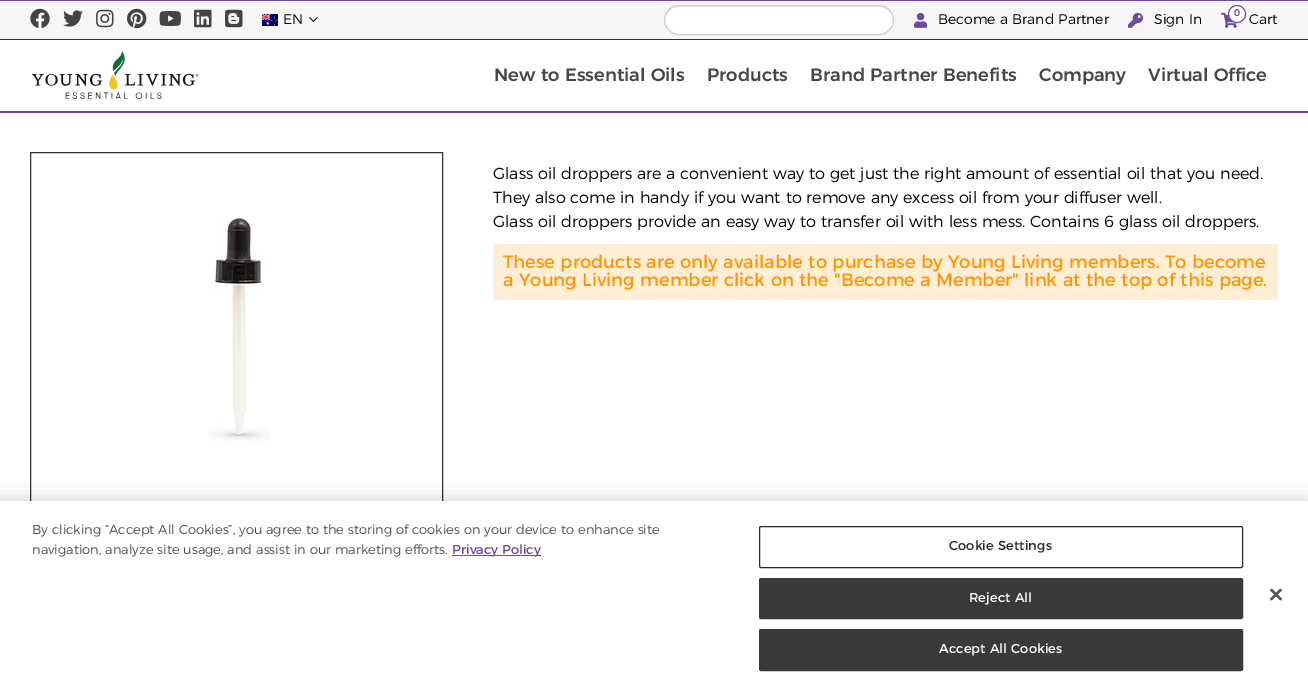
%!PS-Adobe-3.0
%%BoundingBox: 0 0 1308 691
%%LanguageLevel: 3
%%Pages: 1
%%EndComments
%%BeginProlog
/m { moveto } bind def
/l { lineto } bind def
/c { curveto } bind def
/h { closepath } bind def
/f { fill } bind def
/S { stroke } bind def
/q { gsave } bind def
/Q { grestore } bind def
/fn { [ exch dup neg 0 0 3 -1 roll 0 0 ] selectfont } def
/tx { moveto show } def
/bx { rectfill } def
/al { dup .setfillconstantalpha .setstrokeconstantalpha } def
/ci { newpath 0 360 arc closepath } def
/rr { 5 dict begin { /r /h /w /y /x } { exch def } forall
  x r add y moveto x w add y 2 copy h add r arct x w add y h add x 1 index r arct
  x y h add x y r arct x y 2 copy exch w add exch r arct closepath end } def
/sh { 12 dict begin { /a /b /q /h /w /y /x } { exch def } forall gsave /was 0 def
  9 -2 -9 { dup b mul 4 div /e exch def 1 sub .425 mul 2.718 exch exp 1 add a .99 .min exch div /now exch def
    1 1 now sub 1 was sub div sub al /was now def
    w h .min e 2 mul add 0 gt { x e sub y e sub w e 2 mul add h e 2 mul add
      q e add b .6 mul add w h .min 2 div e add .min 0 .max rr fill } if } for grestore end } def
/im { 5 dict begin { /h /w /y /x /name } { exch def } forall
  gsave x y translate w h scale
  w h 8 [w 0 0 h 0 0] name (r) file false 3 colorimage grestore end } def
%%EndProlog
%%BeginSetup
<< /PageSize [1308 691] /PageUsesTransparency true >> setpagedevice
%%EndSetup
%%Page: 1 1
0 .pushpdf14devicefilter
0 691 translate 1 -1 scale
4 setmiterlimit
1 setgray
0 0 1308 691 bx
0.431 0.29 0.62 setrgbcolor
0 111 1308 2 bx
0.965 setgray
0 1 1308 38 bx
0.431 0.29 0.62 setrgbcolor
0 0 1308 1 bx
0.2 setgray
0 39 1308 1 bx
(image0.raw) 30 8 20 20 im
(image1.raw) 63 10 20 17 im
(image2.raw) 96 9 18 19 im
(image3.raw) 127 8 20 21 im
(image4.raw) 159 11 22 15 im
(image5.raw) 194 9 18 19 im
(image6.raw) 225 9 18 19 im
(image7.raw) 262 14 16 12 im
/Montserrat-Light 14 fn
0 setgray
(EN) 283 24 tx
(image8.raw) 309 17 9 5 im
1 setgray
664 5 230 30 15 rr f
0.922 setgray
679 7 m 879 7 l 887 7 893 13 893 20 c 894 -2 854 6 846 6 c 712 6 l 704 6 664 -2 665 20 c 665 13 671 7 679 7 c h f
0.8 setgray
664.5 5.5 229 29 14.5 rr S
(image9.raw) 914 12 14 16 im
0 setgray
(Become a Brand Partner) 938 24 tx
(image10.raw) 1128 12 15 16 im
(Sign In) 1154 24 tx
(image11.raw) 1221 12 16 16 im
1 setgray
1237 14 8.5 ci q f Q
0.431 0.29 0.62 setrgbcolor
S
/Montserrat-Medium 10 fn
(0) 1234 16 tx
/Montserrat-Light 14 fn
0 setgray
(Cart) 1249 24 tx
(image12.raw) 32 51 167 48 im
/Montserrat-Medium 18 fn
0.278 setgray
(New to Essential Oils) 494 81 tx
(Products) 707 81 tx
(Brand Partner Benefits) 810 81 tx
(Company) 1039 81 tx
(Virtual Office) 1148 81 tx
0.2 setgray
30.5 152.5 412 349 rectstroke
(image13.raw) 209 218 61 224 im
/Montserrat-Light 16 fn
0 setgray
(Glass oil droppers are a convenient way to get just the right amount of essential oil that you need.) 493 179 tx
(They also come in handy if you want to remove any excess oil from your diffuser well.) 493 203 tx
(Glass oil droppers provide an easy way to transfer oil with less mess. Contains 6 glass oil droppers.) 493 227 tx
1 0.933 0.839 setrgbcolor
493 244 785 56 bx
/Montserrat-Regular 18 fn
1 0.584 0 setrgbcolor
(These products are only available to purchase by Young Living members. To become) 503 268 tx
(a Young Living member click on the "Become a Member" link at the top of this page.) 503 286 tx
0 setgray
0 501 1308 190 0 9 0.2 sh
1 setgray
0 501 1308 190 bx
/Montserrat-Light 13 fn
0.302 setgray
(By clicking “Accept All Cookies”, you agree to the storing of cookies on your device to enhance site) 32 534 tx
(navigation, analyze site usage, and assist in our marketing efforts.) 32 554 tx
0.431 0.29 0.62 setrgbcolor
452 555 89 1 bx
/Montserrat-Regular 13 fn
(Privacy Policy) 452 554 tx
0.161 setgray
759.5 526.5 483 41 1.5 rr S
949 550 m 0.1 0 (Cookie Settings) ashow
0.227 setgray
759.5 578.5 483 40 1.5 rr q f Q
S
1 setgray
969 602 m 0.1 0 (Reject All) ashow
0.227 setgray
759.5 629.5 483 41 1.5 rr q f Q
S
1 setgray
939 653 m 0.1 0 (Accept All Cookies) ashow
(image14.raw) 1270 589 12 12 im
.poppdf14devicefilter showpage
%%EOF
